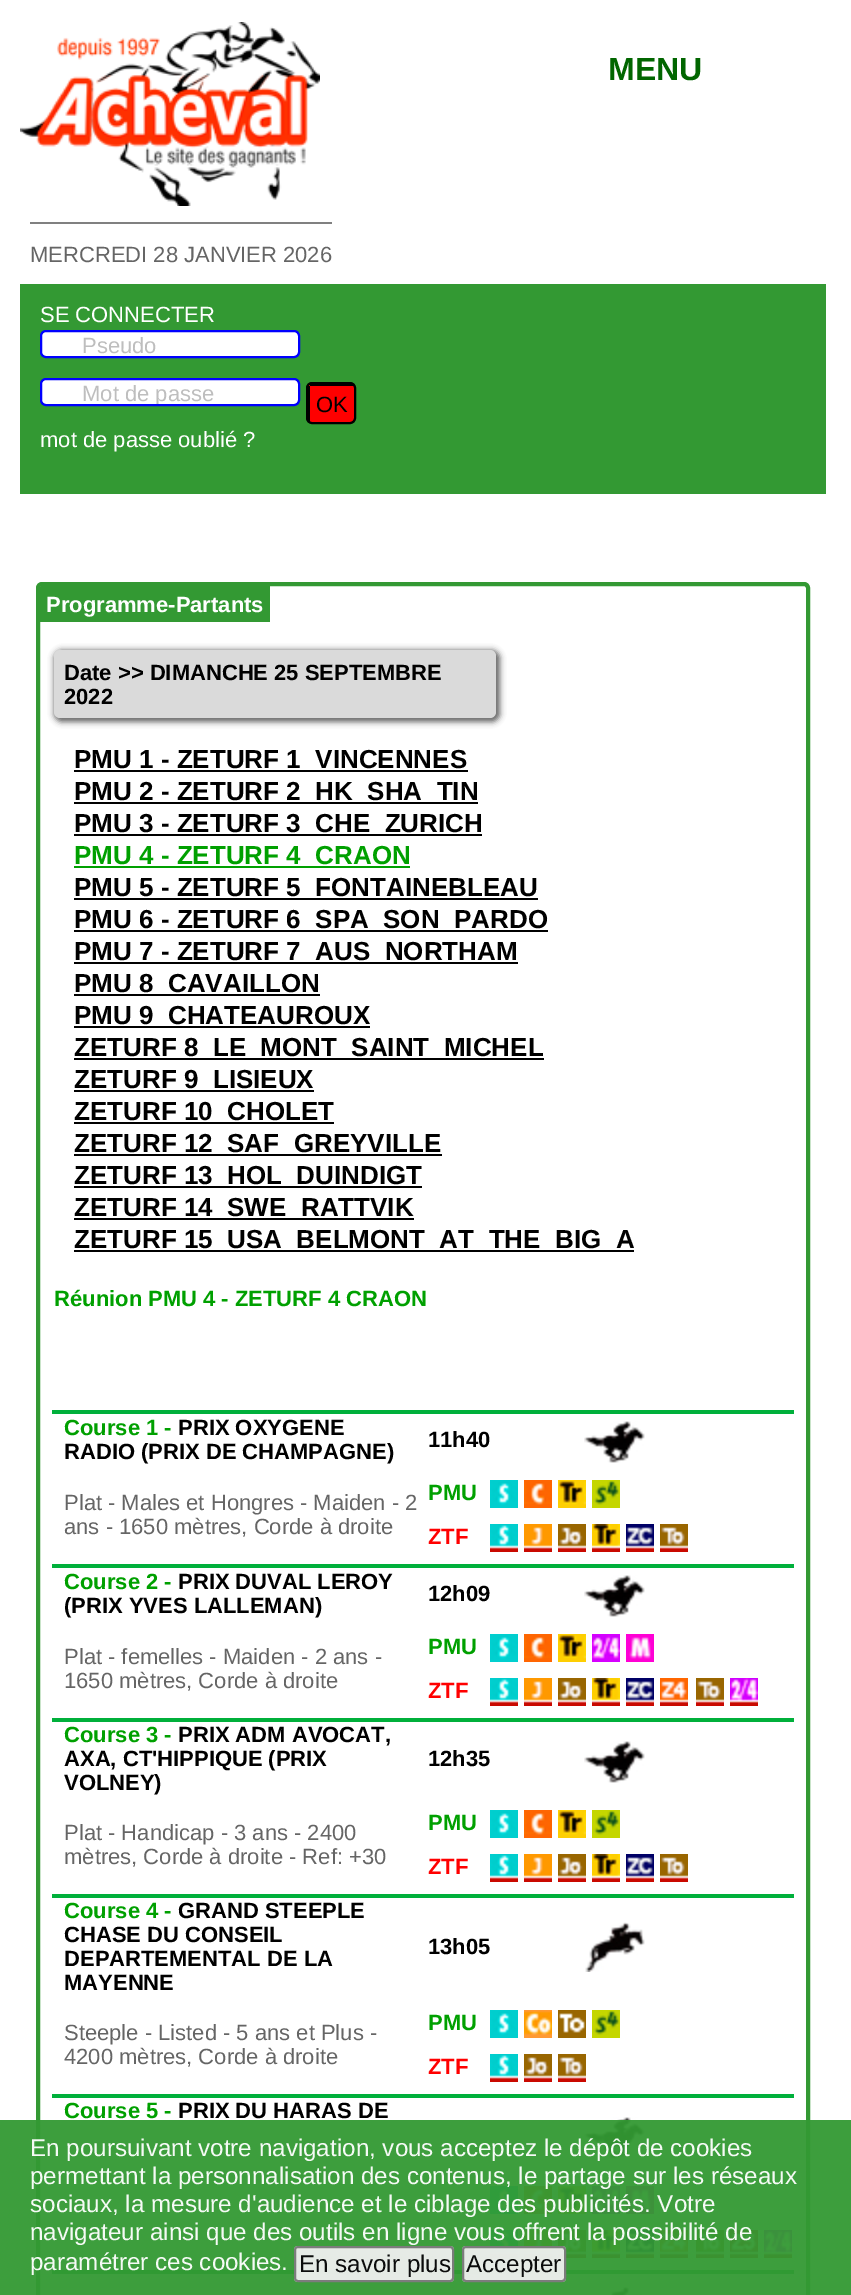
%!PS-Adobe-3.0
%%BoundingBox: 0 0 851 2295
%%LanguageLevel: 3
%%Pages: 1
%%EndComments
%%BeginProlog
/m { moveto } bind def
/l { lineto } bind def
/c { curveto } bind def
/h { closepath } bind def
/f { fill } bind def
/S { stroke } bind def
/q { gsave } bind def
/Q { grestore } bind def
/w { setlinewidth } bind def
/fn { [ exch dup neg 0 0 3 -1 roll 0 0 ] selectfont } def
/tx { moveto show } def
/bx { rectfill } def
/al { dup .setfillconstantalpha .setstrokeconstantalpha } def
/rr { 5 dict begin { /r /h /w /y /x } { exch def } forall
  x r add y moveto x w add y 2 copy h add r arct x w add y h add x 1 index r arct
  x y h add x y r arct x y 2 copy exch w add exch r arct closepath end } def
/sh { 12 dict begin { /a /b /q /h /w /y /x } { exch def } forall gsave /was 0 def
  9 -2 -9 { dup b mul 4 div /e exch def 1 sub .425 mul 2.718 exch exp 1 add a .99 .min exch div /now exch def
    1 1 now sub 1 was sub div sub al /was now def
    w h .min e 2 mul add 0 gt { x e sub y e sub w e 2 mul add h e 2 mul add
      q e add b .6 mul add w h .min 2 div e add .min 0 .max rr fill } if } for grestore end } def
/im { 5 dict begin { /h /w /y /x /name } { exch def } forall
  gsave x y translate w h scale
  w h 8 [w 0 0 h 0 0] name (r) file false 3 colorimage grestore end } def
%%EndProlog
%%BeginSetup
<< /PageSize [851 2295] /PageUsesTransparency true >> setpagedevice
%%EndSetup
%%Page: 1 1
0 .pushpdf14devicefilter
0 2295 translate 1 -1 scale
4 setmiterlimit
1 setgray
0 0 851 2295 bx
/LiberationSans-Bold 32 fn
0.004 0.4 0 setrgbcolor
(MENU) 608 80 tx
(image0.raw) 20 22 300 184 im
0.502 setgray
30 222 302 2 bx
/LiberationSans-Regular 22 fn
0.396 setgray
(MERCREDI 28 JANVIER 2026) 30 262 tx
0.2 0.6 0.2 setrgbcolor
20 284 806 210 bx
1 setgray
(SE CONNECTER) 40 322 tx
41 331 258 26 5 rr q f Q
0 0 1 setrgbcolor
2 w
S
0.745 setgray
(Pseudo) 82 353 tx
1 setgray
41 379 258 26 5 rr q f Q
0 0 1 setrgbcolor
S
q
52 380 246 24 rectclip
0.745 setgray
(Mot de passe) 82 401 tx
Q
0.996 0 0 setrgbcolor
307 383 48 40 5 rr q f Q
0 setgray
S
310 384 44 2 bx
308 386 2 36 bx
(OK) 316 412 tx
1 setgray
(mot de passe oublié ?) 40 447 tx
0.2 0.6 0.2 setrgbcolor
4 w
38 584 770 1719 4 rr S
42 586 m 270 586 l 270 622 l 40 622 l 40 588 l 40 587 41 586 42 586 c h f
/LiberationSans-Bold 22 fn
1 setgray
(Programme-Partants) 46 612 tx
0.396 setgray
54 650 446 72 8 3 1 sh
0.855 setgray
54 650 442 68 6 rr f
0 setgray
(Date >> DIMANCHE 25 SEPTEMBRE) 64 680 tx
(2022) 64 704 tx
74 770 394 2 bx
/LiberationSans-Bold 26 fn
(PMU 1 - ZETURF 1_VINCENNES) 74 768 tx
74 802 404 2 bx
(PMU 2 - ZETURF 2_HK_SHA_TIN) 74 800 tx
74 834 408 2 bx
(PMU 3 - ZETURF 3_CHE_ZURICH) 74 832 tx
0 0.627 0 setrgbcolor
74 866 336 2 bx
(PMU 4 - ZETURF 4_CRAON) 74 864 tx
0 setgray
74 898 464 2 bx
(PMU 5 - ZETURF 5_FONTAINEBLEAU) 74 896 tx
74 930 474 2 bx
(PMU 6 - ZETURF 6_SPA_SON_PARDO) 74 928 tx
74 962 444 2 bx
(PMU 7 - ZETURF 7_AUS_NORTHAM) 74 960 tx
74 994 246 2 bx
(PMU 8_CAVAILLON) 74 992 tx
74 1026 296 2 bx
(PMU 9_CHATEAUROUX) 74 1024 tx
74 1058 470 2 bx
(ZETURF 8_LE_MONT_SAINT_MICHEL) 74 1056 tx
74 1090 240 2 bx
(ZETURF 9_LISIEUX) 74 1088 tx
74 1122 260 2 bx
(ZETURF 10_CHOLET) 74 1120 tx
74 1154 368 2 bx
(ZETURF 12_SAF_GREYVILLE) 74 1152 tx
74 1186 348 2 bx
(ZETURF 13_HOL_DUINDIGT) 74 1184 tx
74 1218 340 2 bx
(ZETURF 14_SWE_RATTVIK) 74 1216 tx
74 1250 560 2 bx
(ZETURF 15_USA_BELMONT_AT_THE_BIG_A) 74 1248 tx
/LiberationSans-Bold 22 fn
0 0.627 0 setrgbcolor
(Réunion PMU 4 - ZETURF 4 CRAON) 54 1306 tx
0 0.69 0.231 setrgbcolor
52 1410 742 4 bx
0 0.627 0 setrgbcolor
(Course 1 -) 64 1435 tx
0 setgray
(PRIX OXYGENE) 178 1435 tx
(RADIO \(PRIX DE CHAMPAGNE\)) 64 1459 tx
(11h40) 428 1447 tx
(image1.raw) 584 1421 61 42 im
/LiberationSans-Regular 22 fn
0.396 setgray
(Plat - Males et Hongres - Maiden - 2) 64 1510 tx
(ans - 1650 mètres, Corde à droite) 64 1534 tx
/LiberationSans-Bold 22 fn
0 0.627 0 setrgbcolor
(PMU) 428 1500 tx
(image2.raw) 490 1480 28 28 im
(image3.raw) 524 1480 28 28 im
(image4.raw) 558 1480 28 28 im
(image5.raw) 592 1480 28 28 im
1 0 0 setrgbcolor
(ZTF) 428 1544 tx
(image6.raw) 490 1524 28 28 im
(image7.raw) 524 1524 28 28 im
(image8.raw) 558 1524 28 28 im
(image9.raw) 592 1524 28 28 im
(image10.raw) 626 1524 28 28 im
(image11.raw) 660 1524 28 28 im
0 0.69 0.231 setrgbcolor
52 1564 742 4 bx
0 0.627 0 setrgbcolor
(Course 2 -) 64 1589 tx
0 setgray
(PRIX DUVAL LEROY) 178 1589 tx
(\(PRIX YVES LALLEMAN\)) 64 1613 tx
(12h09) 428 1601 tx
(image1.raw) 584 1575 61 42 im
/LiberationSans-Regular 22 fn
0.396 setgray
(Plat - femelles - Maiden - 2 ans -) 64 1664 tx
(1650 mètres, Corde à droite) 64 1688 tx
/LiberationSans-Bold 22 fn
0 0.627 0 setrgbcolor
(PMU) 428 1654 tx
(image2.raw) 490 1634 28 28 im
(image3.raw) 524 1634 28 28 im
(image4.raw) 558 1634 28 28 im
(image12.raw) 592 1634 28 28 im
(image13.raw) 626 1634 28 28 im
1 0 0 setrgbcolor
(ZTF) 428 1698 tx
(image6.raw) 490 1678 28 28 im
(image7.raw) 524 1678 28 28 im
(image8.raw) 558 1678 28 28 im
(image9.raw) 592 1678 28 28 im
(image10.raw) 626 1678 28 28 im
(image14.raw) 660 1678 28 28 im
(image11.raw) 696 1678 28 28 im
(image15.raw) 730 1678 28 28 im
0 0.69 0.231 setrgbcolor
52 1718 742 4 bx
0 0.627 0 setrgbcolor
(Course 3 -) 64 1742 tx
0 setgray
(PRIX ADM AVOCAT,) 178 1742 tx
(AXA, CT'HIPPIQUE \(PRIX) 64 1766 tx
(VOLNEY\)) 64 1790 tx
(12h35) 428 1766 tx
(image1.raw) 584 1741 61 42 im
/LiberationSans-Regular 22 fn
0.396 setgray
(Plat - Handicap - 3 ans - 2400) 64 1840 tx
(mètres, Corde à droite - Ref: +30) 64 1864 tx
/LiberationSans-Bold 22 fn
0 0.627 0 setrgbcolor
(PMU) 428 1830 tx
(image2.raw) 490 1810 28 28 im
(image3.raw) 524 1810 28 28 im
(image4.raw) 558 1810 28 28 im
(image5.raw) 592 1810 28 28 im
1 0 0 setrgbcolor
(ZTF) 428 1874 tx
(image6.raw) 490 1854 28 28 im
(image7.raw) 524 1854 28 28 im
(image8.raw) 558 1854 28 28 im
(image9.raw) 592 1854 28 28 im
(image10.raw) 626 1854 28 28 im
(image11.raw) 660 1854 28 28 im
0 0.69 0.231 setrgbcolor
52 1894 742 4 bx
0 0.627 0 setrgbcolor
(Course 4 -) 64 1918 tx
0 setgray
(GRAND STEEPLE) 178 1918 tx
(CHASE DU CONSEIL) 64 1942 tx
(DEPARTEMENTAL DE LA) 64 1966 tx
(MAYENNE) 64 1990 tx
(13h05) 428 1954 tx
(image16.raw) 585 1922 60 50 im
/LiberationSans-Regular 22 fn
0.396 setgray
(Steeple - Listed - 5 ans et Plus -) 64 2040 tx
(4200 mètres, Corde à droite) 64 2064 tx
/LiberationSans-Bold 22 fn
0 0.627 0 setrgbcolor
(PMU) 428 2030 tx
(image2.raw) 490 2010 28 28 im
(image17.raw) 524 2010 28 28 im
(image18.raw) 558 2010 28 28 im
(image5.raw) 592 2010 28 28 im
1 0 0 setrgbcolor
(ZTF) 428 2074 tx
(image6.raw) 490 2054 28 28 im
(image8.raw) 524 2054 28 28 im
(image11.raw) 558 2054 28 28 im
0 0.69 0.231 setrgbcolor
52 2094 742 4 bx
0 0.627 0 setrgbcolor
(Course 5 -) 64 2118 tx
0 setgray
(PRIX DU HARAS DE) 178 2118 tx
(image1.raw) 584 2117 61 42 im
(image2.raw) 490 2186 28 28 im
(image3.raw) 524 2186 28 28 im
(image4.raw) 558 2186 28 28 im
(image12.raw) 592 2186 28 28 im
(image13.raw) 626 2186 28 28 im
(image6.raw) 490 2230 28 28 im
(image7.raw) 524 2230 28 28 im
(image8.raw) 558 2230 28 28 im
(image9.raw) 592 2230 28 28 im
(image10.raw) 626 2230 28 28 im
(image14.raw) 660 2230 28 28 im
(image11.raw) 696 2230 28 28 im
(image19.raw) 730 2230 28 28 im
(image15.raw) 764 2230 28 28 im
0 0.69 0.231 setrgbcolor
52 2270 742 4 bx
(image20.raw) 610 2286 33 9 im
0.95 al
0.2 0.6 0.2 setrgbcolor
0 2120 851 175 bx
/LiberationSans-Regular 24.2 fn
1 al
0.961 0.98 0.961 setrgbcolor
(En poursuivant votre navigation, vous acceptez le dépôt de cookies) 30 2156 tx
(permettant la personnalisation des contenus, le partage sur les réseaux) 30 2184 tx
(sociaux, la mesure d'audience et le ciblage des publicités. Votre) 30 2212 tx
(navigateur ainsi que des outils en ligne vous offrent la possibilité de) 30 2240 tx
(paramétrer ces cookies.) 30 2270 tx
0.95 al
0.937 setgray
294 2246 160 36 4 rr f
0.463 setgray
2 w
295 2247 158 34 3 rr S
1 al
0.043 0.047 0.047 setrgbcolor
(En savoir plus) 299 2272 tx
0.95 al
0.937 setgray
462 2246 104 36 4 rr f
0.463 setgray
463 2247 102 34 3 rr S
1 al
0.043 0.047 0.047 setrgbcolor
(Accepter) 466 2272 tx
.poppdf14devicefilter showpage
%%EOF
